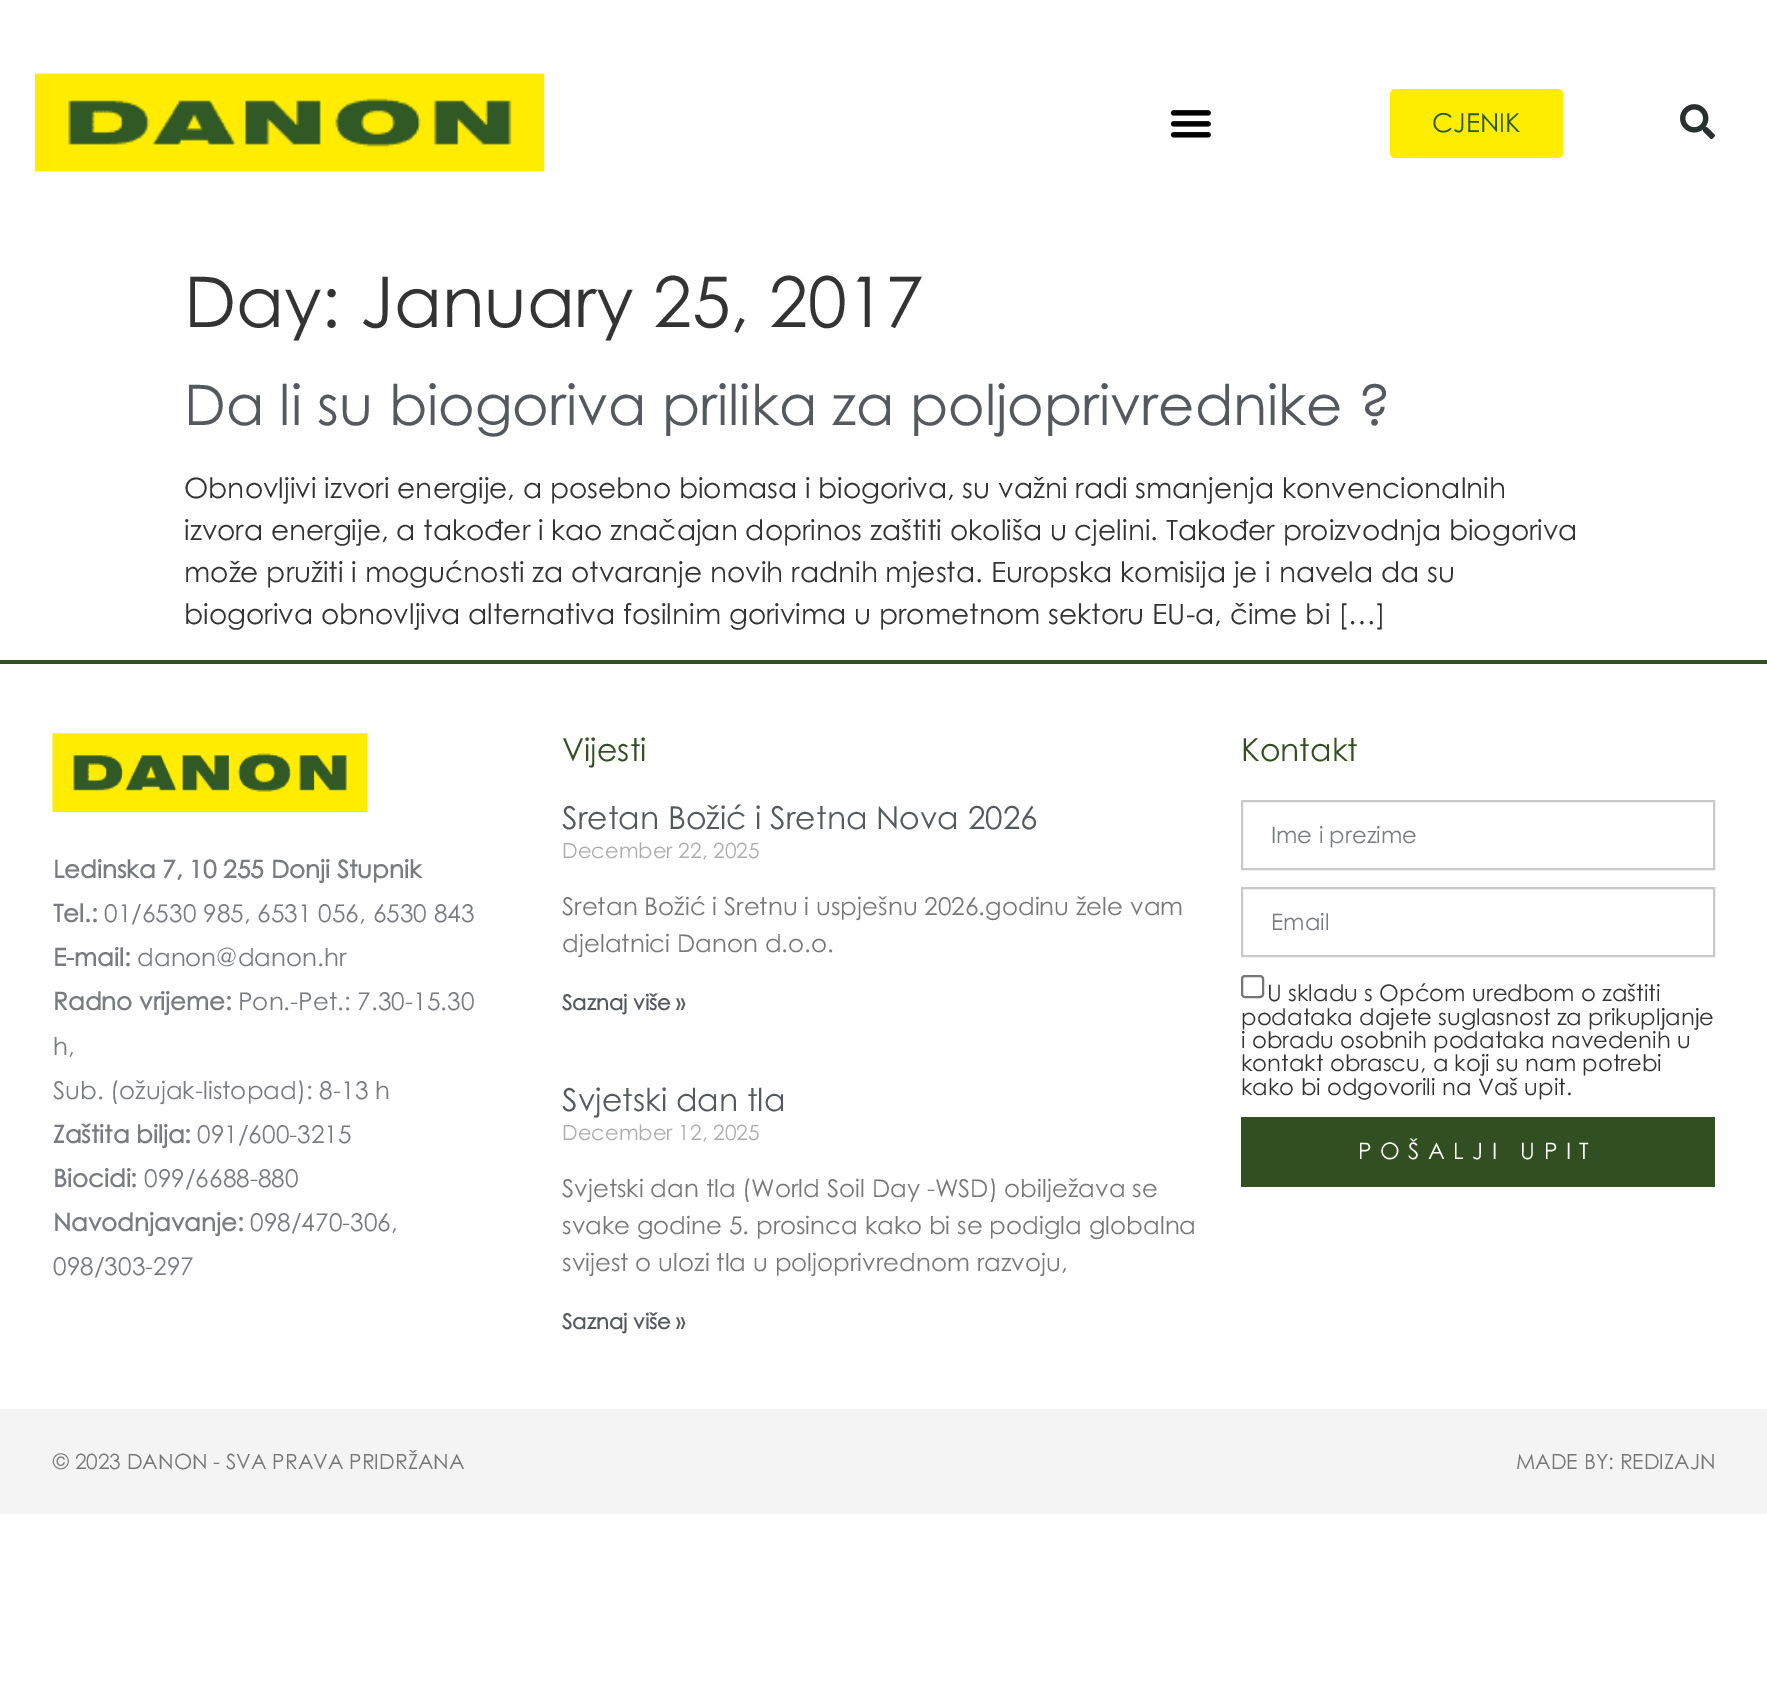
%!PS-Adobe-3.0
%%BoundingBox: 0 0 1767 1696
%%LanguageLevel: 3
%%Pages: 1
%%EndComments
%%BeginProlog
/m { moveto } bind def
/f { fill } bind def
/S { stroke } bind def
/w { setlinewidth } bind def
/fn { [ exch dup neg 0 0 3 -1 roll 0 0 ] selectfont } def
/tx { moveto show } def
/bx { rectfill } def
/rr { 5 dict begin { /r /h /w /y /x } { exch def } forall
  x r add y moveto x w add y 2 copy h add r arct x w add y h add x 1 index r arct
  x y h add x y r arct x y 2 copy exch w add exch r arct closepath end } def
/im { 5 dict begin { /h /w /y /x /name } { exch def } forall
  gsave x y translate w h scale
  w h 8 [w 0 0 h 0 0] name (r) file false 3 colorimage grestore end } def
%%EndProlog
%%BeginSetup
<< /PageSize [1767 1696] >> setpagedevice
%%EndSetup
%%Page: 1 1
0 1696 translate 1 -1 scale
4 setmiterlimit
1 setgray
0 0 1767 1696 bx
(image0.raw) 35 73 510 99 im
(image1.raw) 1170 110 41 28 im
1 0.929 0 setrgbcolor
1390 89 173 69 5 rr f
/CenturyGothic-Regular 26 fn
0.176 0.345 0.129 setrgbcolor
(CJENIK) 1432 132 tx
(image2.raw) 1680 104 35 36 im
/CenturyGothic-Regular 70 fn
0.2 setgray
(Day: January 25, 2017) 184 327 tx
/CenturyGothic-Regular 56 fn
0.329 0.349 0.373 setrgbcolor
(Da li su biogoriva prilika za poljoprivrednike ?) 184 425 tx
/CenturyGothic-Regular 28 fn
0.2 setgray
(Obnovljivi izvori energije, a posebno biomasa i biogoriva, su važni radi smanjenja konvencionalnih) 184 498 tx
(izvora energije, a također i kao značajan doprinos zaštiti okoliša u cjelini. Također proizvodnja biogoriva) 184 540 tx
(može pružiti i mogućnosti za otvaranje novih radnih mjesta. Europska komisija je i navela da su) 184 582 tx
(biogoriva obnovljiva alternativa fosilnim gorivima u prometnom sektoru EU-a, čime bi […]) 184 624 tx
0.196 0.31 0.129 setrgbcolor
0 660 1767 4 bx
(image3.raw) 52 733 316 79 im
/CenturyGothic-Bold 24.5 fn
0.471 0.486 0.506 setrgbcolor
(Ledinska 7, 10 255 Donji Stupnik) 53 878 tx
(Tel.:) 53 922 tx
/CenturyGothic-Regular 24.5 fn
(01/6530 985, 6531 056, 6530 843) 104 922 tx
/CenturyGothic-Bold 24.5 fn
(E-mail:) 53 966 tx
/CenturyGothic-Regular 24.5 fn
(danon@danon.hr) 137 966 tx
/CenturyGothic-Bold 24.5 fn
(Radno vrijeme:) 53 1010 tx
/CenturyGothic-Regular 24.5 fn
(Pon.-Pet.: 7.30-15.30) 238 1010 tx
(h,) 53 1055 tx
(Sub. \(ožujak-listopad\): 8-13 h) 53 1099 tx
/CenturyGothic-Bold 24.5 fn
(Zaštita bilja:) 53 1143 tx
/CenturyGothic-Regular 24.5 fn
(091/600-3215) 197 1143 tx
/CenturyGothic-Bold 24.5 fn
(Biocidi:) 53 1187 tx
/CenturyGothic-Regular 24.5 fn
(099/6688-880) 144 1187 tx
/CenturyGothic-Bold 24.5 fn
(Navodnjavanje:) 53 1231 tx
/CenturyGothic-Regular 24.5 fn
(098/470-306,) 250 1231 tx
(098/303-297) 53 1275 tx
/CenturyGothic-Regular 31.5 fn
0.196 0.31 0.129 setrgbcolor
(Vijesti) 562 761 tx
0.329 0.349 0.373 setrgbcolor
(Sretan Božić i Sretna Nova 2026) 562 829 tx
/CenturyGothic-Regular 21 fn
0.678 setgray
(December 22, 2025) 562 858 tx
/CenturyGothic-Regular 24.5 fn
0.467 setgray
(Sretan Božić i Sretnu i uspješnu 2026.godinu žele vam) 562 915 tx
(djelatnici Danon d.o.o.) 562 952 tx
/CenturyGothic-Bold 21 fn
0.329 0.349 0.373 setrgbcolor
(Saznaj više ») 562 1010 tx
/CenturyGothic-Regular 31.5 fn
(Svjetski dan tla) 562 1111 tx
/CenturyGothic-Regular 21 fn
0.678 setgray
(December 12, 2025) 562 1140 tx
/CenturyGothic-Regular 24.5 fn
0.467 setgray
(Svjetski dan tla \(World Soil Day -WSD\) obilježava se) 562 1197 tx
(svake godine 5. prosinca kako bi se podigla globalna) 562 1234 tx
(svijest o ulozi tla u poljoprivrednom razvoju,) 562 1271 tx
/CenturyGothic-Bold 21 fn
0.329 0.349 0.373 setrgbcolor
(Saznaj više ») 562 1329 tx
/CenturyGothic-Regular 31.5 fn
0.196 0.31 0.129 setrgbcolor
(Kontakt) 1241 761 tx
0.788 setgray
2 w
1242 801 472 68 rectstroke
/CenturyGothic-Regular 22.75 fn
0.471 0.486 0.506 setrgbcolor
(Ime i prezime) 1271 843 tx
0.788 setgray
1242 888 472 68 rectstroke
0.471 0.486 0.506 setrgbcolor
(Email) 1271 930 tx
0.463 setgray
1242 976 21 21 3 rr S
0.2 setgray
(U skladu s Općom uredbom o zaštiti) 1267 1001 tx
(podataka dajete suglasnost za prikupljanje) 1241 1025 tx
(i obradu osobnih podataka navedenih u) 1241 1048 tx
(kontakt obrascu, a koji su nam potrebi) 1241 1071 tx
(kako bi odgovorili na Vaš upit.) 1241 1095 tx
0.196 0.31 0.129 setrgbcolor
1241 1117 474 70 bx
1 setgray
1358 1159 m 8.5 0 (POŠALJI UPIT) ashow
0.957 setgray
0 1409 1767 105 bx
/CenturyGothic-Regular 21 fn
0.467 setgray
(© 2023 DANON - SVA PRAVA PRIDRŽANA) 53 1469 tx
(MADE BY: REDIZAJN) 1516 1469 tx
showpage
%%EOF
